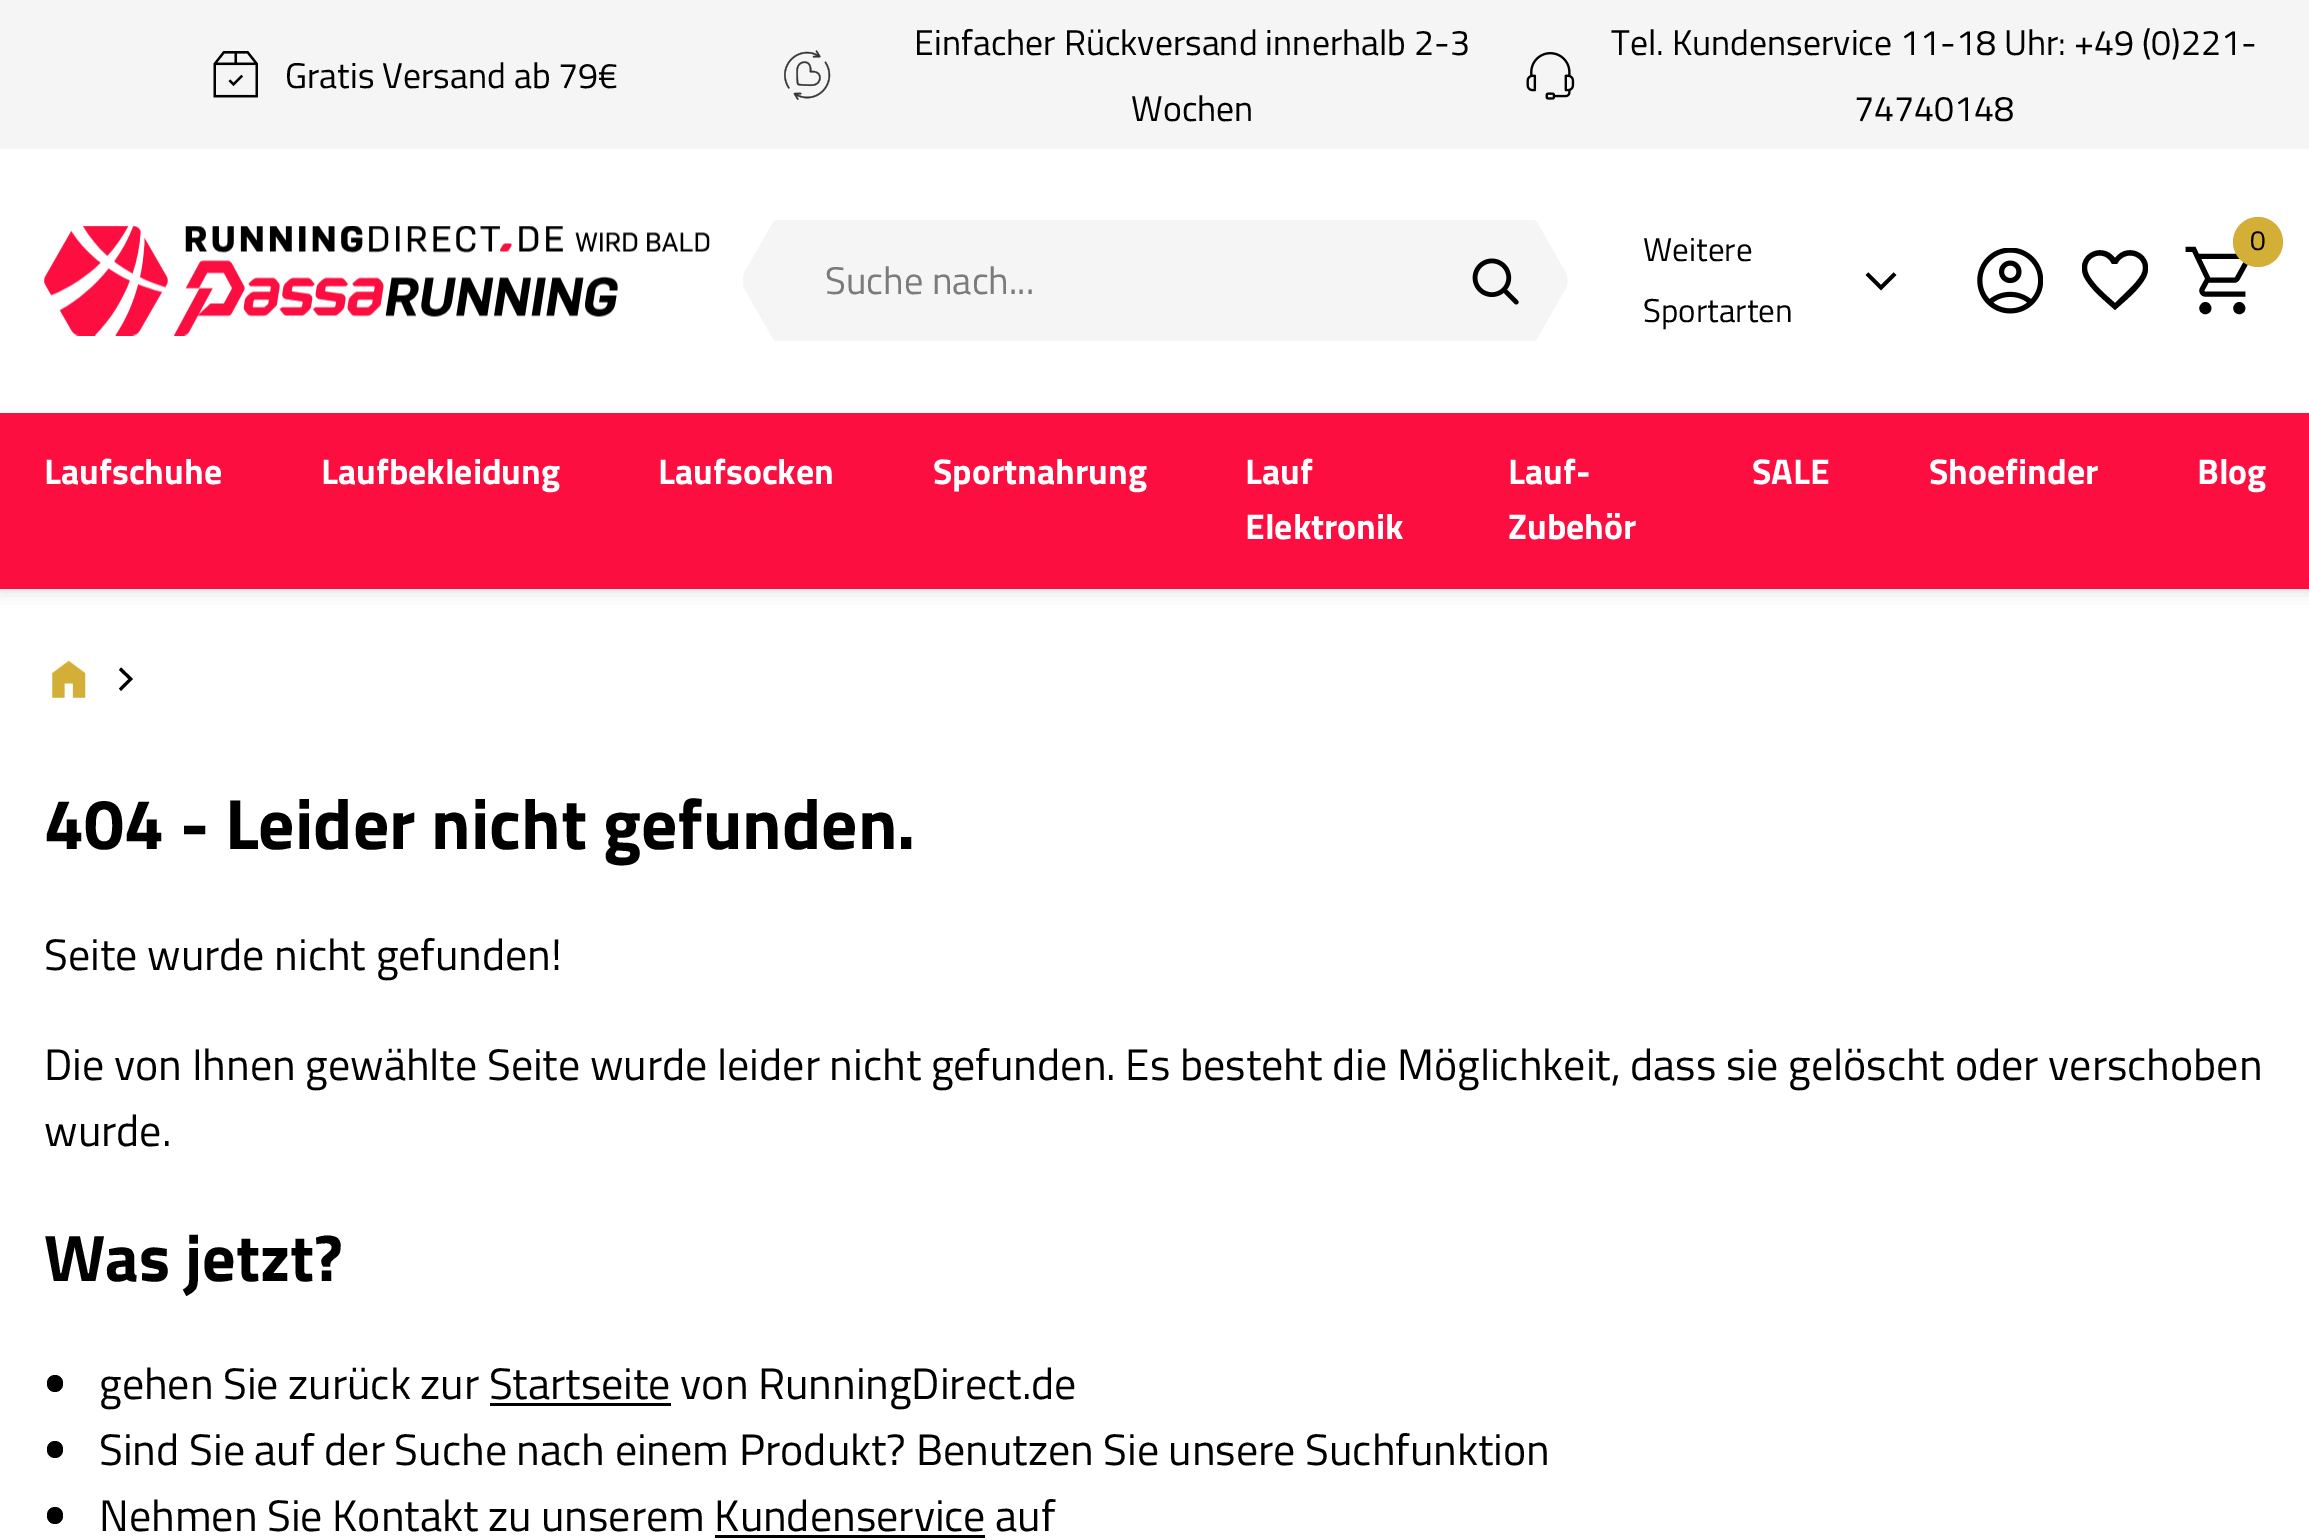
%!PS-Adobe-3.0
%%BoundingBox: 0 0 2309 1540
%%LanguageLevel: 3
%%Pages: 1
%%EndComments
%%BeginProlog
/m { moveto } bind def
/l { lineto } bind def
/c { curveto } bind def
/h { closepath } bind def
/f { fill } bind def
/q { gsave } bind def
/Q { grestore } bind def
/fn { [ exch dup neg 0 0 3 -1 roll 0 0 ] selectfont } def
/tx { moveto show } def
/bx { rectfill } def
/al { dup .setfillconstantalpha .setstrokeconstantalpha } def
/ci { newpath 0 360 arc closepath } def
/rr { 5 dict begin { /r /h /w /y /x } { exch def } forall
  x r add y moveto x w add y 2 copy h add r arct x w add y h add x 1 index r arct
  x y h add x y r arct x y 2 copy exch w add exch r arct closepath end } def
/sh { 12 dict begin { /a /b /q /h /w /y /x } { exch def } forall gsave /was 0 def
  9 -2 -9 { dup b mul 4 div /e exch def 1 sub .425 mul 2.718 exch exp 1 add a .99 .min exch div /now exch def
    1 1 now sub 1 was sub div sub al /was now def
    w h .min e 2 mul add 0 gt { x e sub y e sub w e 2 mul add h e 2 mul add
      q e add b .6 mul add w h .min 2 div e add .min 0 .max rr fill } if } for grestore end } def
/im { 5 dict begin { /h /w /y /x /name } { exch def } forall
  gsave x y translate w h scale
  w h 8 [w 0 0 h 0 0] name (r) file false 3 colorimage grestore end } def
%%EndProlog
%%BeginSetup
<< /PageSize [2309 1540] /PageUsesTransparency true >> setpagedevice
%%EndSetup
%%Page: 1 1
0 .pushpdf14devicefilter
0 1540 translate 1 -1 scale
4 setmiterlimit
1 setgray
0 0 2309 1540 bx
0.227 0.02 0.063 setrgbcolor
0 151 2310 440 0 8 0.15 sh
0.961 setgray
0 0 2309 149 bx
(image0.raw) 213 51 45 47 im
/TitilliumWeb-Regular 35.75 fn
0 setgray
(Gratis Versand ab 79€) 285 88 tx
(Einfacher Rückversand innerhalb 2-3) 914 55 tx
(image1.raw) 784 50 47 50 im
(Wochen) 1131 121 tx
(Tel. Kundenservice 11-18 Uhr: +49 \(0\)221-) 1611 55 tx
(image2.raw) 1526 52 49 48 im
(74740148) 1854 121 tx
1 setgray
0 149 2309 264 bx
(image3.raw) 44 226 666 110 im
q
1526 220 42 121 rectclip
0.961 setgray
1526 217 m 1531 217 1536 220 1538 224 c 1566 273 l 1568 278 1568 283 1566 288 c 1538 337 l 1536 341 1531 344 1526 344 c h f
Q
q
743 220 41 121 rectclip
0.961 setgray
784 217 m 779 217 774 220 772 224 c 744 273 l 742 278 742 283 744 288 c 772 337 l 774 341 779 344 784 344 c h f
Q
0.961 setgray
784 220 742 121 bx
/TitilliumWeb-Regular 38.5 fn
0.482 setgray
(Suche nach...) 825 294 tx
(image4.raw) 1472 258 47 47 im
(image5.raw) 1865 272 32 19 im
/TitilliumWeb-Regular 33 fn
0 setgray
(Weitere) 1643 261 tx
(Sportarten) 1643 322 tx
(image6.raw) 2185 246 64 69 im
0.831 0.686 0.216 setrgbcolor
2258 242 25 ci f
/TitilliumWeb-Regular 28 fn
0 setgray
(0) 2250 250 tx
(image7.raw) 1977 248 66 66 im
q
2082 248 66 66 rectclip
2115 310 m 2105 301 2090 289 2084 277 c 2074 256 2101 240 2115 258 c 2129 240 2156 256 2146 277 c 2140 289 2125 301 2115 310 c h 2115 303 m 2123 295 2135 285 2141 275 c 2150 258 2126 247 2117 264 c 2112 264 l 2104 247 2080 258 2089 275 c 2094 285 2106 295 2115 303 c h f
Q
0.988 0.059 0.251 setrgbcolor
0 413 2309 176 bx
/TitilliumWeb-Bold 35.75 fn
1 setgray
(Laufschuhe) 44 484 tx
(Laufbekleidung) 321 484 tx
(Laufsocken) 658 484 tx
(Sportnahrung) 933 484 tx
(Lauf) 1245 484 tx
(Elektronik) 1245 539 tx
(Lauf-) 1508 484 tx
(Zubehör) 1508 539 tx
(SALE) 1752 484 tx
(Shoefinder) 1929 484 tx
(Blog) 2197 484 tx
(image8.raw) 52 660 34 38 im
0 setgray
128.5 679 m 119 670 l 121 667.5 l 133 679 l 121 691 l 119 688.5 l h f
/TitilliumWeb-Bold 71.5 fn
(404 - Leider nicht gefunden.) 44 849 tx
/TitilliumWeb-Regular 44 fn
(Seite wurde nicht gefunden!) 44 970 tx
(Die von Ihnen gewählte Seite wurde leider nicht gefunden. Es besteht die Möglichkeit, dass sie gelöscht oder verschoben) 44 1080 tx
(wurde.) 44 1146 tx
/TitilliumWeb-Bold 66 fn
(Was jetzt?) 44 1281 tx
47 1375 16 17 8 rr f
/TitilliumWeb-Regular 44 fn
(gehen Sie zurück zur Startseite von RunningDirect.de) 99 1399 tx
490 1403 181 3 bx
47 1441 16 17 8 rr f
(Sind Sie auf der Suche nach einem Produkt? Benutzen Sie unsere Suchfunktion) 99 1465 tx
47 1507 16 17 8 rr f
(Nehmen Sie Kontakt zu unserem Kundenservice auf) 99 1531 tx
715 1535 270 3 bx
.poppdf14devicefilter showpage
%%EOF
